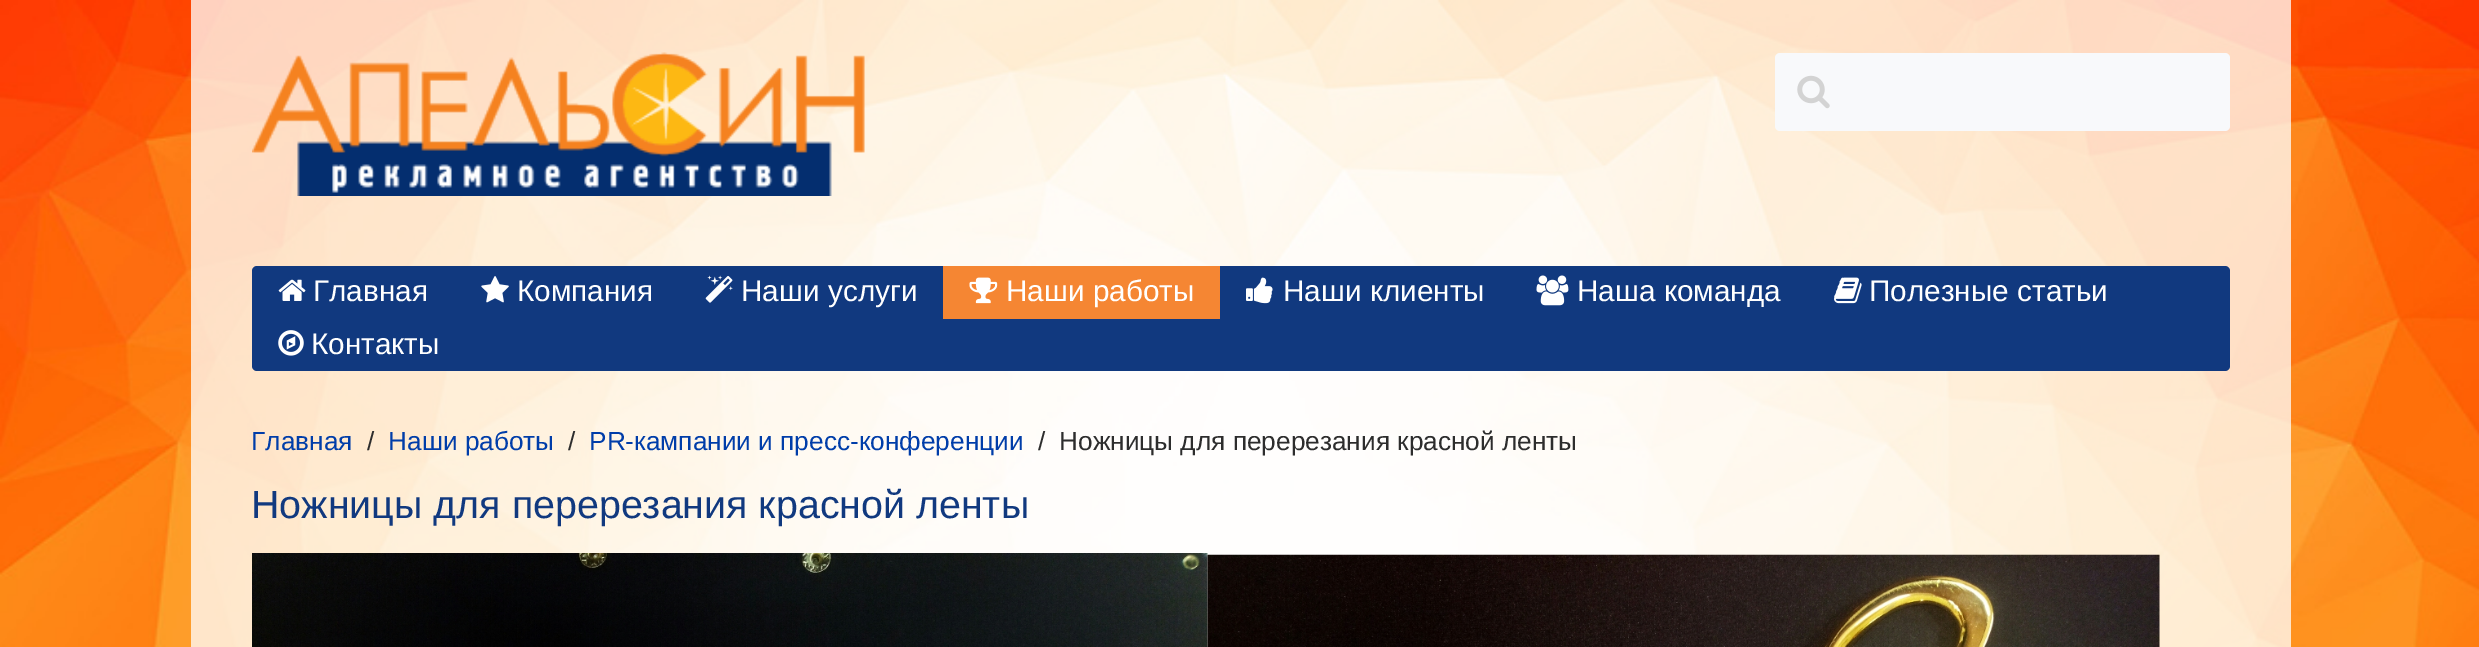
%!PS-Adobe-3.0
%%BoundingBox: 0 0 2479 647
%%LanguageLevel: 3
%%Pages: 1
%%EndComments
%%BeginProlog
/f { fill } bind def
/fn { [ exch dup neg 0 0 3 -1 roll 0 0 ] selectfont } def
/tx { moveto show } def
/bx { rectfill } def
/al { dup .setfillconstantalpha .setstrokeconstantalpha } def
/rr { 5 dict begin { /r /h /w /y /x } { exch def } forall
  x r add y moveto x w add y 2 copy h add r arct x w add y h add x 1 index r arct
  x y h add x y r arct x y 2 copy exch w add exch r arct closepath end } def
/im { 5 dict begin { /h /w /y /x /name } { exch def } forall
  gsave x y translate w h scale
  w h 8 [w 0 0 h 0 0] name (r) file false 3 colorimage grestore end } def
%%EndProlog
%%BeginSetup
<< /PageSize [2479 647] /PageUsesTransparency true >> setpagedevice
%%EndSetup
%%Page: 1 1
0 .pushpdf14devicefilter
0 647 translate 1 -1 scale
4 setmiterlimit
1 setgray
0 0 2479 647 bx
(image0.raw) 0 0 2479 647 im
0.75 al
191 0 2100 647 bx
1 al
(image1.raw) 252 52 613 144 im
0.973 0.976 0.984 setrgbcolor
1775 53 455 78 5 rr f
(image2.raw) 1797 75 33 34 im
0.067 0.224 0.498 setrgbcolor
252 266 1978 105 5 rr f
(image3.raw) 278 279 28 22 im
/LiberationSans-Regular 29.75 fn
1 setgray
(Главная) 313 301 tx
(image4.raw) 481 276 28 27 im
(Компания) 517 301 tx
(image5.raw) 705 275 28 28 im
(Наши услуги) 741 301 tx
0.961 0.525 0.2 setrgbcolor
943 266 277 53 bx
(image6.raw) 969 277 29 27 im
1 setgray
(Наши работы) 1006 301 tx
(image7.raw) 1246 277 27 27 im
(Наши клиенты) 1283 301 tx
(image8.raw) 1536 275 33 31 im
(Наша команда) 1577 301 tx
(image9.raw) 1834 277 28 27 im
(Полезные статьи) 1869 301 tx
(image10.raw) 278 330 26 26 im
(Контакты) 311 354 tx
/LiberationSans-Regular 26.25 fn
0 0.239 0.663 setrgbcolor
(Главная) 251 450 tx
0.176 setgray
(/) 367 450 tx
0 0.239 0.663 setrgbcolor
(Наши работы) 388 450 tx
0.176 setgray
(/) 568 450 tx
0 0.239 0.663 setrgbcolor
(PR-кампании и пресс-конференции) 589 450 tx
0.176 setgray
(/) 1038 450 tx
(Ножницы для перерезания красной ленты) 1059 450 tx
/LiberationSans-Regular 39.4 fn
0.067 0.224 0.498 setrgbcolor
(Ножницы для перерезания красной ленты) 251 518 tx
(image11.raw) 252 553 956 94 im
(image12.raw) 1207 554 953 93 im
.poppdf14devicefilter showpage
%%EOF
